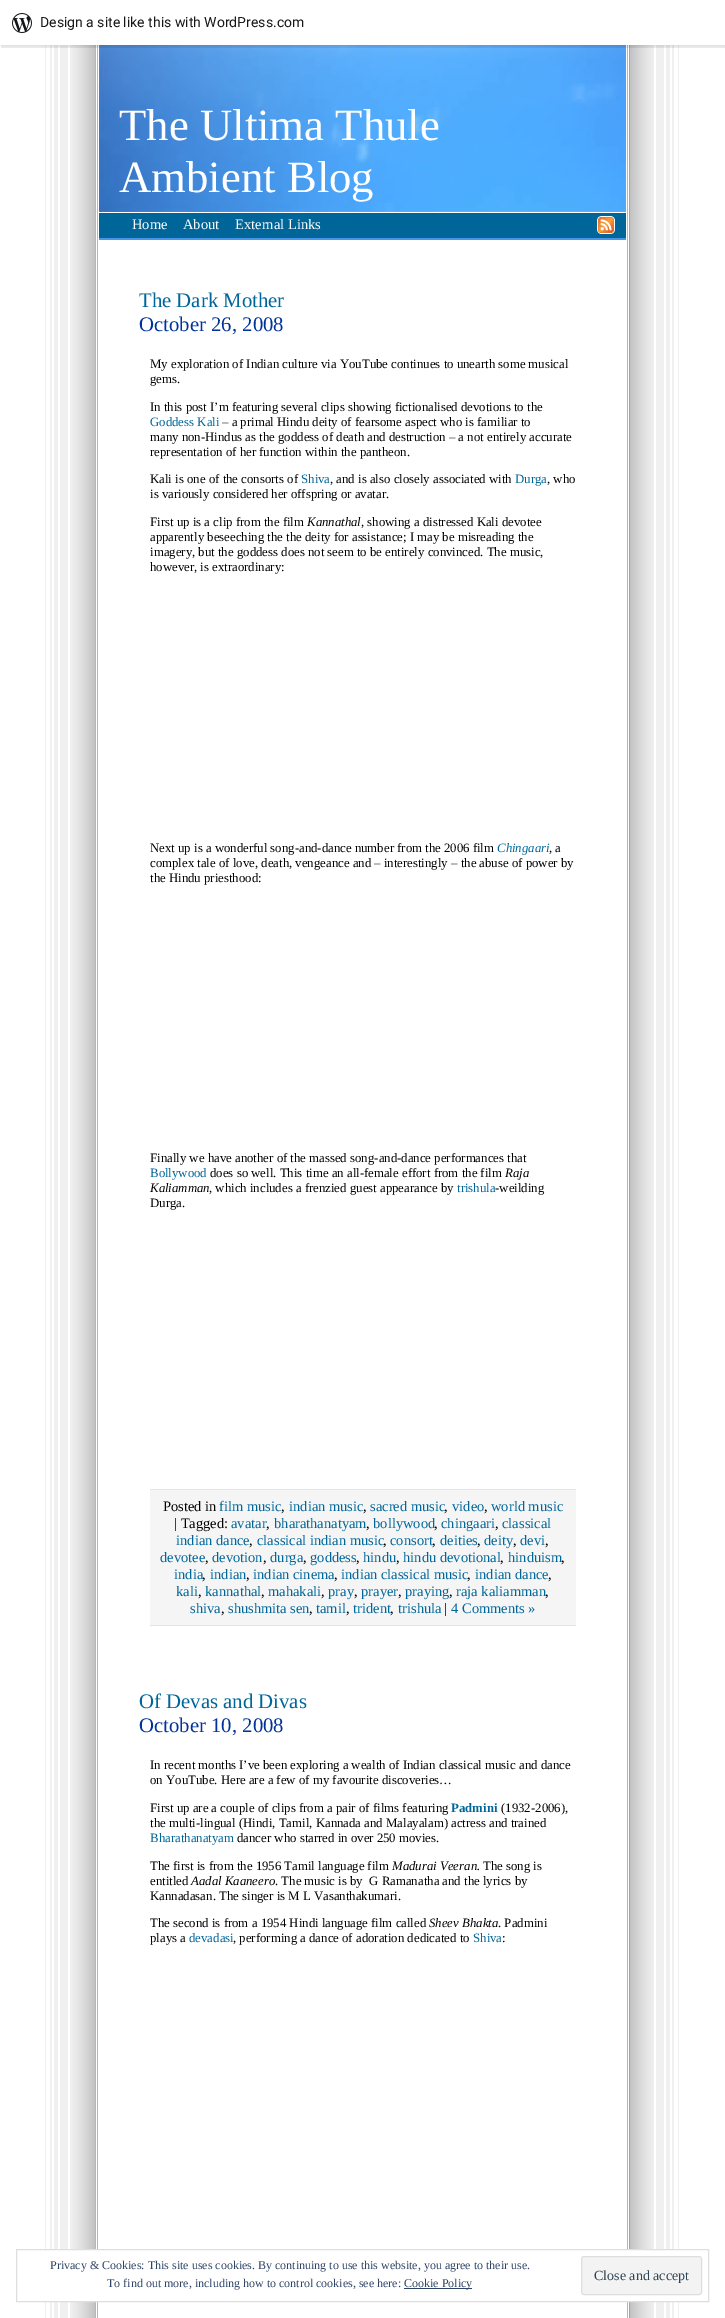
%!PS-Adobe-3.0
%%BoundingBox: 0 0 725 2318
%%LanguageLevel: 3
%%Pages: 1
%%EndComments
%%BeginProlog
/m { moveto } bind def
/l { lineto } bind def
/h { closepath } bind def
/f { fill } bind def
/S { stroke } bind def
/q { gsave } bind def
/Q { grestore } bind def
/fn { [ exch dup neg 0 0 3 -1 roll 0 0 ] selectfont } def
/tx { moveto show } def
/bx { rectfill } def
/al { dup .setfillconstantalpha .setstrokeconstantalpha } def
/rr { 5 dict begin { /r /h /w /y /x } { exch def } forall
  x r add y moveto x w add y 2 copy h add r arct x w add y h add x 1 index r arct
  x y h add x y r arct x y 2 copy exch w add exch r arct closepath end } def
/sh { 12 dict begin { /a /b /q /h /w /y /x } { exch def } forall gsave /was 0 def
  9 -2 -9 { dup b mul 4 div /e exch def 1 sub .425 mul 2.718 exch exp 1 add a .99 .min exch div /now exch def
    1 1 now sub 1 was sub div sub al /was now def
    w h .min e 2 mul add 0 gt { x e sub y e sub w e 2 mul add h e 2 mul add
      q e add b .6 mul add w h .min 2 div e add .min 0 .max rr fill } if } for grestore end } def
/im { 5 dict begin { /h /w /y /x /name } { exch def } forall
  gsave x y translate w h scale
  w h 8 [w 0 0 h 0 0] name (r) file false 3 colorimage grestore end } def
%%EndProlog
%%BeginSetup
<< /PageSize [725 2318] /PageUsesTransparency true >> setpagedevice
%%EndSetup
%%Page: 1 1
0 .pushpdf14devicefilter
0 2318 translate 1 -1 scale
4 setmiterlimit
1 setgray
0 0 725 2318 bx
(image1.raw) 45 45 634 2273 im
(image2.raw) 99 45 527 167 im
0 setgray
0 1 725 45 0 1 0.05 sh
0.08 al
1 45 m 1 48 l 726 48 l 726 3 l 725 3 l 725 45 l h f
1 al
1 setgray
0 0 725 45 bx
(image0.raw) 12 13 20 20 im
/Roboto-Regular 14 fn
0.09 setgray
(Design a site like this with WordPress.com) 40 27 tx
/LiberationSerif-Regular 44.75 fn
1 setgray
(The Ultima Thule) 119 140 tx
(Ambient Blog) 119 192 tx
0 0.4 0.6 setrgbcolor
99 213 527 25 bx
0.278 0.588 0.914 setrgbcolor
99 238 527 2 bx
/LiberationSerif-Regular 14.5 fn
1 setgray
(Home) 132 229 tx
(About) 183 229 tx
(External Links) 235 229 tx
(image3.raw) 597 216 18 18 im
/LiberationSerif-Regular 20.75 fn
0 0.4 0.6 setrgbcolor
(The Dark Mother) 139 307 tx
0 0.2 0.6 setrgbcolor
(October 26, 2008) 139 331 tx
/LiberationSerif-Regular 12.8 fn
0 setgray
(My exploration of Indian culture via YouTube continues to unearth some musical) 150 368 tx
(gems.) 150 383 tx
(In this post I’m featuring several clips showing fictionalised devotions to the) 150 411 tx
0 0.4 0.6 setrgbcolor
(Goddess Kali) 150 426 tx
0 setgray
(– a primal Hindu deity of fearsome aspect who is familiar to) 222 426 tx
(many non-Hindus as the goddess of death and destruction – a not entirely accurate) 150 441 tx
(representation of her function within the pantheon.) 150 456 tx
(Kali is one of the consorts of) 150 483 tx
0 0.4 0.6 setrgbcolor
(Shiva) 301 483 tx
0 setgray
(, and is also closely associated with) 330 483 tx
0 0.4 0.6 setrgbcolor
(Durga) 515 483 tx
0 setgray
(, who) 547 483 tx
(is variously considered her offspring or avatar.) 150 498 tx
(First up is a clip from the film) 150 526 tx
/LiberationSerif-Italic 12.8 fn
(Kannathal) 307 526 tx
/LiberationSerif-Regular 12.8 fn
(, showing a distressed Kali devotee) 361 526 tx
(apparently beseeching the the deity for assistance; I may be misreading the) 150 541 tx
(imagery, but the goddess does not seem to be entirely convinced. The music,) 150 556 tx
(however, is extraordinary:) 150 571 tx
(Next up is a wonderful song-and-dance number from the 2006 film) 150 852 tx
/LiberationSerif-Italic 12.8 fn
0 0.4 0.6 setrgbcolor
(Chingaari) 497 852 tx
/LiberationSerif-Regular 12.8 fn
0 setgray
(, a) 549 852 tx
(complex tale of love, death, vengeance and – interestingly – the abuse of power by) 150 867 tx
(the Hindu priesthood:) 150 882 tx
(Finally we have another of the massed song-and-dance performances that) 150 1162 tx
0 0.4 0.6 setrgbcolor
(Bollywood) 150 1177 tx
0 setgray
(does so well. This time an all-female effort from the film) 210 1177 tx
/LiberationSerif-Italic 12.8 fn
(Raja) 505 1177 tx
(Kaliamman) 150 1192 tx
/LiberationSerif-Regular 12.8 fn
(, which includes a frenzied guest appearance by) 209 1192 tx
0 0.4 0.6 setrgbcolor
(trishula) 457 1192 tx
0 setgray
(-weilding) 495 1192 tx
(Durga.) 150 1207 tx
0.961 setgray
150 1490 426 135 bx
0.898 setgray
150 1489 426 1 bx
150 1625 426 1 bx
/LiberationSerif-Regular 14.5 fn
0 setgray
(Posted in) 163 1511 tx
0 0.4 0.6 setrgbcolor
(film music) 219 1511 tx
0 setgray
(,) 281 1511 tx
0 0.4 0.6 setrgbcolor
(indian music) 289 1511 tx
0 setgray
(,) 363 1511 tx
0 0.4 0.6 setrgbcolor
(sacred music) 370 1511 tx
0 setgray
(,) 444 1511 tx
0 0.4 0.6 setrgbcolor
(video) 452 1511 tx
0 setgray
(,) 484 1511 tx
0 0.4 0.6 setrgbcolor
(world music) 491 1511 tx
0 setgray
(| Tagged:) 174 1528 tx
0 0.4 0.6 setrgbcolor
(avatar) 231 1528 tx
0 setgray
(,) 266 1528 tx
0 0.4 0.6 setrgbcolor
(bharathanatyam) 274 1528 tx
0 setgray
(,) 366 1528 tx
0 0.4 0.6 setrgbcolor
(bollywood) 373 1528 tx
0 setgray
(,) 434 1528 tx
0 0.4 0.6 setrgbcolor
(chingaari) 441 1528 tx
0 setgray
(,) 495 1528 tx
0 0.4 0.6 setrgbcolor
(classical) 502 1528 tx
(indian dance) 176 1545 tx
0 setgray
(,) 249 1545 tx
0 0.4 0.6 setrgbcolor
(classical indian music) 257 1545 tx
0 setgray
(,) 383 1545 tx
0 0.4 0.6 setrgbcolor
(consort) 390 1545 tx
0 setgray
(,) 432 1545 tx
0 0.4 0.6 setrgbcolor
(deities) 440 1545 tx
0 setgray
(,) 477 1545 tx
0 0.4 0.6 setrgbcolor
(deity) 484 1545 tx
0 setgray
(,) 513 1545 tx
0 0.4 0.6 setrgbcolor
(devi) 520 1545 tx
0 setgray
(,) 545 1545 tx
0 0.4 0.6 setrgbcolor
(devotee) 160 1562 tx
0 setgray
(,) 205 1562 tx
0 0.4 0.6 setrgbcolor
(devotion) 212 1562 tx
0 setgray
(,) 263 1562 tx
0 0.4 0.6 setrgbcolor
(durga) 270 1562 tx
0 setgray
(,) 303 1562 tx
0 0.4 0.6 setrgbcolor
(goddess) 310 1562 tx
0 setgray
(,) 356 1562 tx
0 0.4 0.6 setrgbcolor
(hindu) 363 1562 tx
0 setgray
(,) 396 1562 tx
0 0.4 0.6 setrgbcolor
(hindu devotional) 403 1562 tx
0 setgray
(,) 500 1562 tx
0 0.4 0.6 setrgbcolor
(hinduism) 508 1562 tx
0 setgray
(,) 561 1562 tx
0 0.4 0.6 setrgbcolor
(india) 174 1579 tx
0 setgray
(,) 202 1579 tx
0 0.4 0.6 setrgbcolor
(indian) 210 1579 tx
0 setgray
(,) 246 1579 tx
0 0.4 0.6 setrgbcolor
(indian cinema) 253 1579 tx
0 setgray
(,) 334 1579 tx
0 0.4 0.6 setrgbcolor
(indian classical music) 341 1579 tx
0 setgray
(,) 467 1579 tx
0 0.4 0.6 setrgbcolor
(indian dance) 475 1579 tx
0 setgray
(,) 548 1579 tx
0 0.4 0.6 setrgbcolor
(kali) 176 1596 tx
0 setgray
(,) 198 1596 tx
0 0.4 0.6 setrgbcolor
(kannathal) 205 1596 tx
0 setgray
(,) 261 1596 tx
0 0.4 0.6 setrgbcolor
(mahakali) 268 1596 tx
0 setgray
(,) 321 1596 tx
0 0.4 0.6 setrgbcolor
(pray) 328 1596 tx
0 setgray
(,) 354 1596 tx
0 0.4 0.6 setrgbcolor
(prayer) 361 1596 tx
0 setgray
(,) 398 1596 tx
0 0.4 0.6 setrgbcolor
(praying) 405 1596 tx
0 setgray
(,) 449 1596 tx
0 0.4 0.6 setrgbcolor
(raja kaliamman) 456 1596 tx
0 setgray
(,) 545 1596 tx
0 0.4 0.6 setrgbcolor
(shiva) 190 1613 tx
0 setgray
(,) 221 1613 tx
0 0.4 0.6 setrgbcolor
(shushmita sen) 228 1613 tx
0 setgray
(,) 309 1613 tx
0 0.4 0.6 setrgbcolor
(tamil) 316 1613 tx
0 setgray
(,) 346 1613 tx
0 0.4 0.6 setrgbcolor
(trident) 353 1613 tx
0 setgray
(,) 390 1613 tx
0 0.4 0.6 setrgbcolor
(trishula) 398 1613 tx
0 setgray
(|) 444 1613 tx
0 0.4 0.6 setrgbcolor
(4 Comments ») 451 1613 tx
/LiberationSerif-Regular 20.75 fn
(Of Devas and Divas) 139 1708 tx
0 0.2 0.6 setrgbcolor
(October 10, 2008) 139 1732 tx
/LiberationSerif-Regular 12.8 fn
0 setgray
(In recent months I’ve been exploring a wealth of Indian classical music and dance) 150 1769 tx
(on YouTube. Here are a few of my favourite discoveries…) 150 1784 tx
(First up are a couple of clips from a pair of films featuring) 150 1812 tx
/LiberationSerif-Bold 12.8 fn
0 0.4 0.6 setrgbcolor
(Padmini) 451 1812 tx
/LiberationSerif-Regular 12.8 fn
0 setgray
(\(1932-2006\),) 501 1812 tx
(the multi-lingual \(Hindi, Tamil, Kannada and Malayalam\) actress and trained) 150 1827 tx
0 0.4 0.6 setrgbcolor
(Bharathanatyam) 150 1842 tx
0 setgray
(dancer who starred in over 250 movies.) 237 1842 tx
q
150 1745 426 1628 rectclip
(The first is from the 1956 Tamil language film) 150 1870 tx
Q
/LiberationSerif-Italic 12.8 fn
(Madurai Veeran.) 392 1870 tx
/LiberationSerif-Regular 12.8 fn
(The song is) 483 1870 tx
(entitled) 150 1885 tx
/LiberationSerif-Italic 12.8 fn
(Aadal Kaaneero) 191 1885 tx
/LiberationSerif-Regular 12.8 fn
(. The music is by  G Ramanatha and the lyrics by) 275 1885 tx
(Kannadasan. The singer is M L Vasanthakumari.) 150 1900 tx
q
150 1745 426 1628 rectclip
(The second is from a 1954 Hindi language film called) 150 1927 tx
Q
/LiberationSerif-Italic 12.8 fn
(Sheev Bhakta) 429 1927 tx
/LiberationSerif-Regular 12.8 fn
(. Padmini) 498 1927 tx
(plays a) 150 1942 tx
0 0.4 0.6 setrgbcolor
(devadasi) 189 1942 tx
0 setgray
(, performing a dance of adoration dedicated to) 233 1942 tx
0 0.4 0.6 setrgbcolor
(Shiva) 473 1942 tx
0 setgray
(:) 502 1942 tx
1 setgray
45 2250 634 51 bx
0.871 setgray
16.5 2249.5 692 52 rectstroke
/LiberationSerif-Regular 12 fn
0.18 0.267 0.404 setrgbcolor
(Privacy & Cookies: This site uses cookies. By continuing to use this website, you agree to their use.) 50 2269 tx
(To find out more, including how to control cookies, see here:) 107 2287 tx
404 2288 68 1 bx
(Cookie Policy) 404 2287 tx
0.953 setgray
581.5 2256.5 120 38 2.5 rr q f Q
0.871 setgray
S
/LiberationSerif-Regular 14 fn
0.18 0.267 0.325 setrgbcolor
(Close and accept) 594 2280 tx
.poppdf14devicefilter showpage
%%EOF
